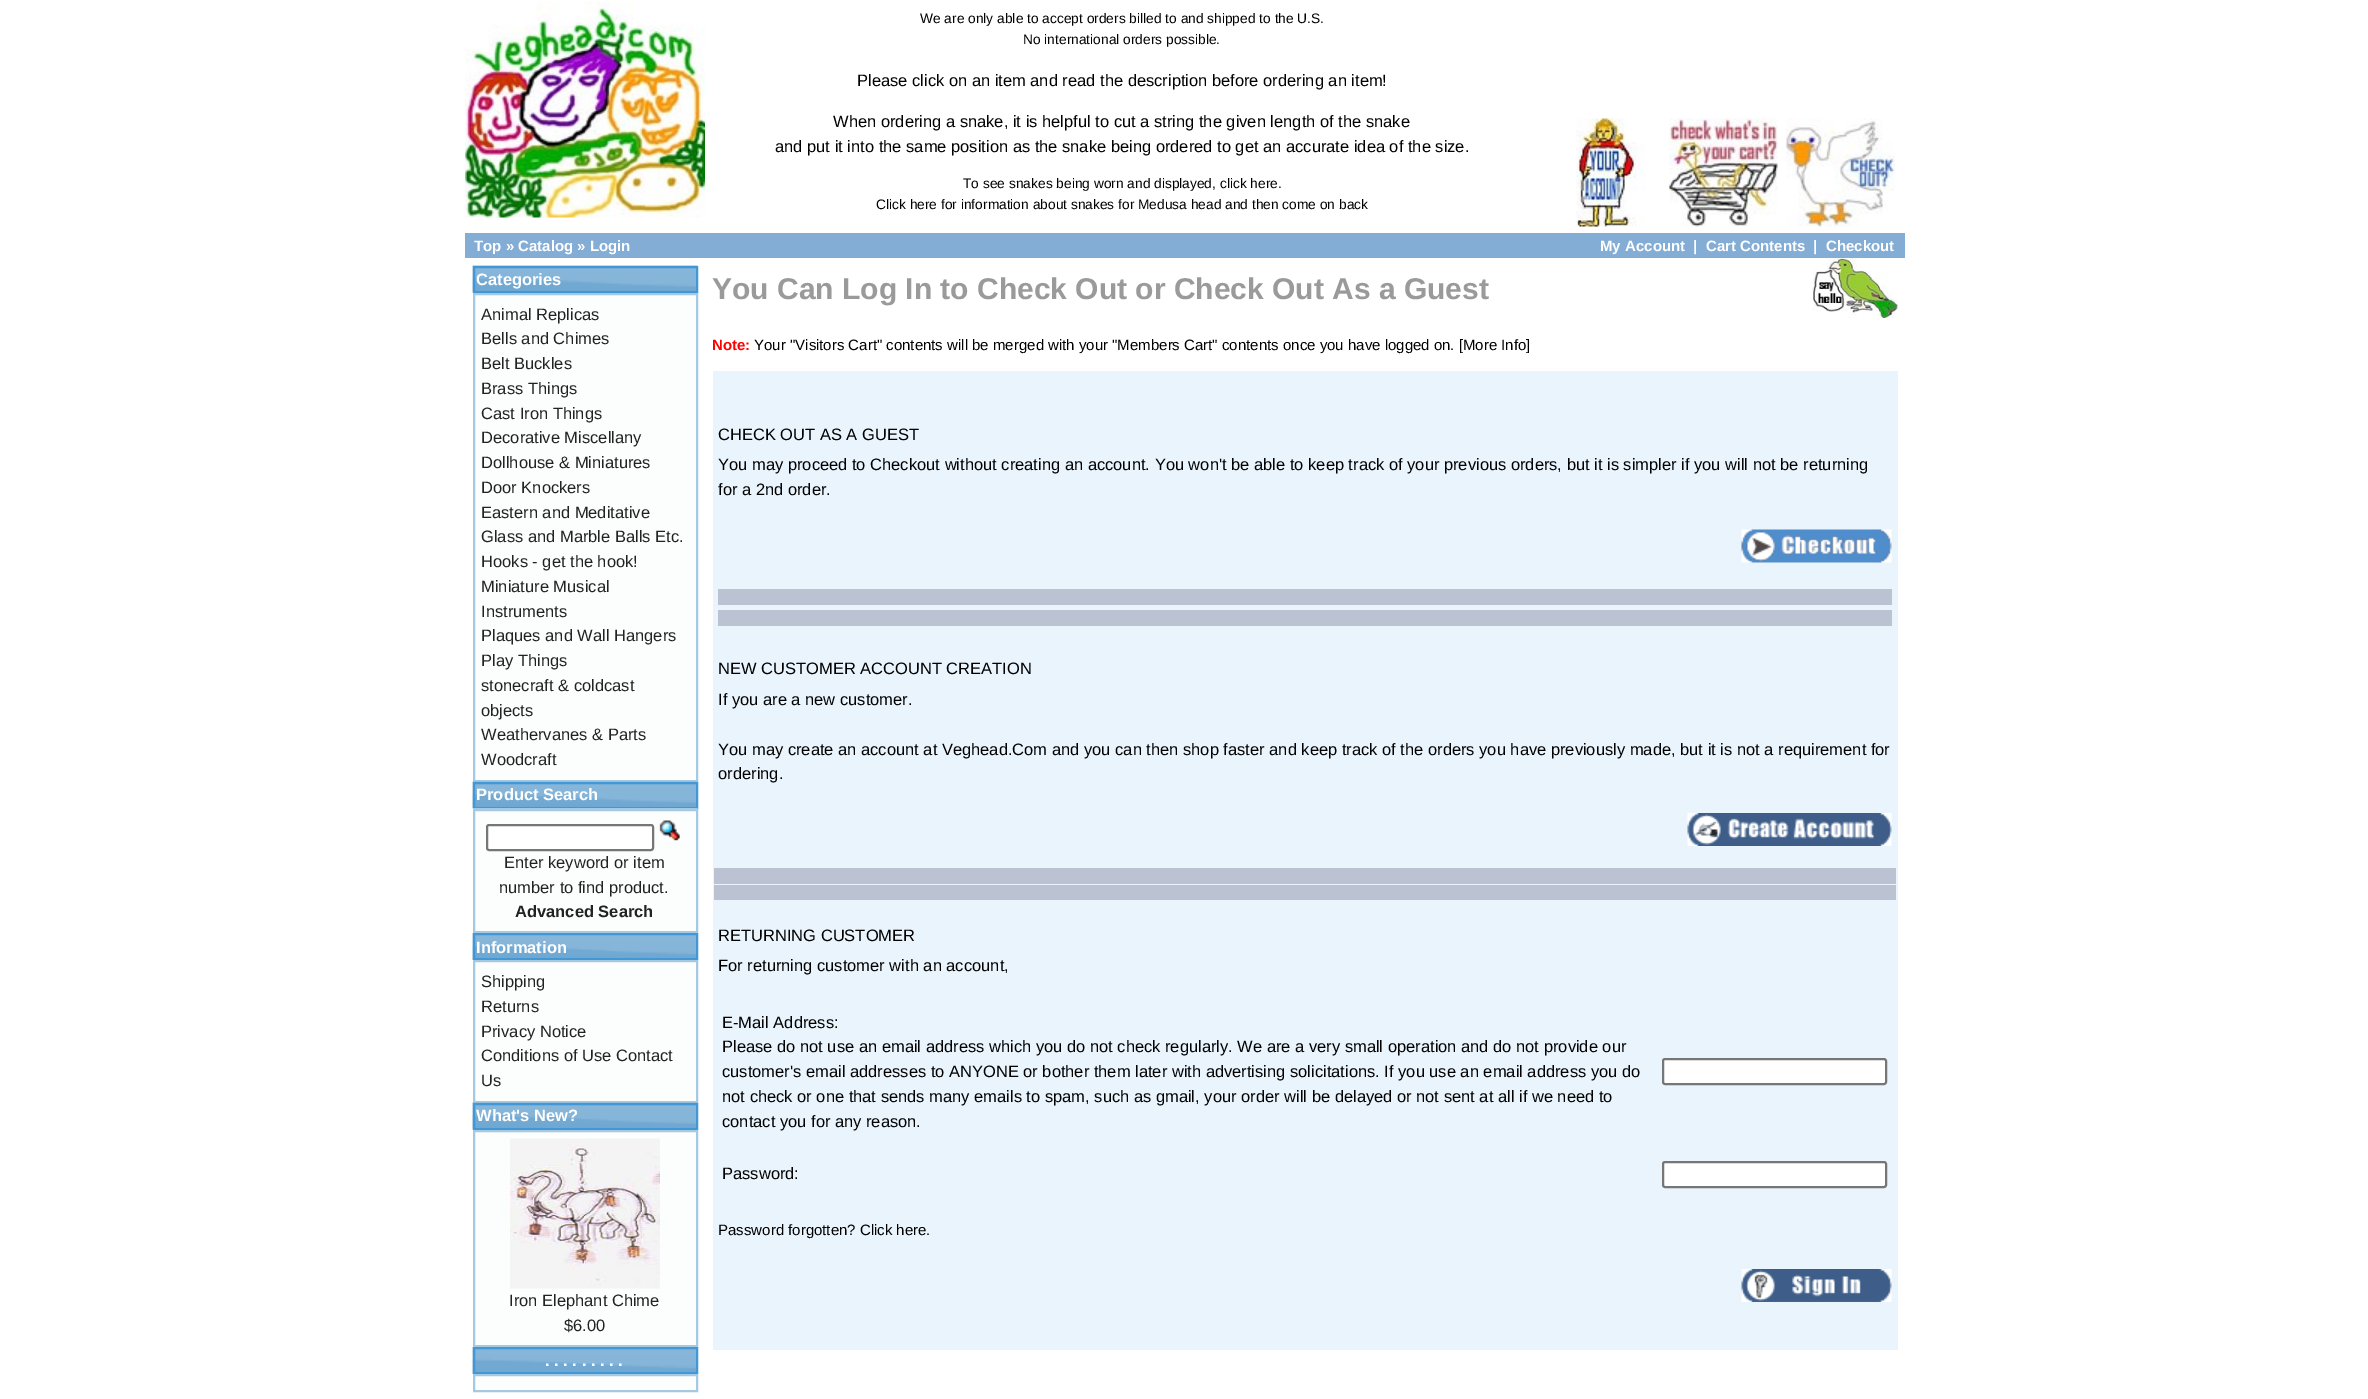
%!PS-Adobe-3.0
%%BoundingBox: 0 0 2368 1399
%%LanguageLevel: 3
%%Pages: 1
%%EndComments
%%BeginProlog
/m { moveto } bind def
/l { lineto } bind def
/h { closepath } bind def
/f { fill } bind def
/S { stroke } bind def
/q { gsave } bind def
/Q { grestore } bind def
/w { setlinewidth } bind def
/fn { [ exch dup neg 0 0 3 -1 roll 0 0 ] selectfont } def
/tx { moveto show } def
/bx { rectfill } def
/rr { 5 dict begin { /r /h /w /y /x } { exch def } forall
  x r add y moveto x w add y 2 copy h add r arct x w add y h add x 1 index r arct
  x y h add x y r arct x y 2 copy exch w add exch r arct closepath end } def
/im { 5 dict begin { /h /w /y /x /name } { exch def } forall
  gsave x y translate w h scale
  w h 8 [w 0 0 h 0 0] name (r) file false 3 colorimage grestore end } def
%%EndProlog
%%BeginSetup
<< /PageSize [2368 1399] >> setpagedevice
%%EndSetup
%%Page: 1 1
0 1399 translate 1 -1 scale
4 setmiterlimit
1 setgray
0 0 2368 1399 bx
(image0.raw) 465 1 240 217 im
/LiberationSans-Regular 13.75 fn
0 setgray
(We are only able to accept orders billed to and shipped to the U.S.) 920 23 tx
(No international orders possible.) 1023 44 tx
/LiberationSans-Regular 16.5 fn
(Please click on an item and read the description before ordering an item!) 857 86 tx
(When ordering a snake, it is helpful to cut a string the given length of the snake) 833 127 tx
(and put it into the same position as the snake being ordered to get an accurate idea of the size.) 775 152 tx
/LiberationSans-Regular 13.75 fn
(To see snakes being worn and displayed, click here.) 963 188 tx
(Click here for information about snakes for Medusa head) 876 209 tx
(and then come on back) 1225 209 tx
(image1.raw) 1576 118 70 109 im
(image2.raw) 1669 118 109 109 im
(image3.raw) 1786 118 109 109 im
0.518 0.678 0.839 setrgbcolor
465 233 1440 25 bx
/LiberationSans-Bold 15 fn
1 setgray
(Top » Catalog » Login) 474 251 tx
(My Account) 1600 251 tx
(|) 1693 251 tx
(Cart Contents) 1706 251 tx
(|) 1813 251 tx
(Checkout) 1826 251 tx
(image4.raw) 472 265 226 28 im
0.259 0.592 0.843 setrgbcolor
2 w
474 267 223 25 rectstroke
/LiberationSans-Bold 16.5 fn
1 setgray
(Categories) 476 285 tx
0.988 0.992 0.992 setrgbcolor
474 294 m 697 294 l 697 781 l 474 781 l h q f Q
0.651 0.788 0.886 setrgbcolor
S
/LiberationSans-Regular 16.5 fn
0.133 setgray
(Animal Replicas) 481 320 tx
(Bells and Chimes) 481 344 tx
(Belt Buckles) 481 369 tx
(Brass Things) 481 394 tx
(Cast Iron Things) 481 419 tx
(Decorative Miscellany) 481 443 tx
(Dollhouse & Miniatures) 481 468 tx
(Door Knockers) 481 493 tx
(Eastern and Meditative) 481 518 tx
(Glass and Marble Balls Etc.) 481 542 tx
(Hooks - get the hook!) 481 567 tx
(Miniature Musical) 481 592 tx
(Instruments) 481 617 tx
(Plaques and Wall Hangers) 481 641 tx
(Play Things) 481 666 tx
(stonecraft & coldcast) 481 691 tx
(objects) 481 716 tx
(Weathervanes & Parts) 481 740 tx
(Woodcraft) 481 765 tx
(image5.raw) 472 781 226 28 im
0.259 0.592 0.843 setrgbcolor
474 783 223 25 rectstroke
/LiberationSans-Bold 16.5 fn
1 setgray
(Product Search) 476 800 tx
0.988 0.992 0.992 setrgbcolor
474 810 m 697 810 l 697 932 l 474 932 l h q f Q
0.651 0.788 0.886 setrgbcolor
S
(image6.raw) 472 808 226 1 im
1 setgray
487 825 166 25 2 rr q f Q
0.463 setgray
S
(image7.raw) 659 820 21 21 im
/LiberationSans-Regular 16.5 fn
0.133 setgray
(Enter keyword or item) 504 868 tx
(number to find product.) 499 893 tx
/LiberationSans-Bold 16.5 fn
(Advanced Search) 515 917 tx
(image8.raw) 472 933 224 27 im
0.259 0.592 0.843 setrgbcolor
474 934 223 25 rectstroke
1 setgray
(Information) 476 953 tx
0.988 0.992 0.992 setrgbcolor
474 961 m 697 961 l 697 1102 l 474 1102 l h q f Q
0.651 0.788 0.886 setrgbcolor
S
/LiberationSans-Regular 16.5 fn
0.133 setgray
(Shipping) 481 987 tx
(Returns) 481 1012 tx
(Privacy Notice) 481 1037 tx
(Conditions of Use Contact) 481 1061 tx
(Us) 481 1086 tx
(image5.raw) 472 1102 226 28 im
0.259 0.592 0.843 setrgbcolor
474 1104 223 25 rectstroke
/LiberationSans-Bold 16.5 fn
1 setgray
(What's New?) 476 1121 tx
0.988 0.992 0.992 setrgbcolor
474 1131 m 697 1131 l 697 1346 l 474 1346 l h q f Q
0.651 0.788 0.886 setrgbcolor
S
(image9.raw) 510 1138 150 151 im
/LiberationSans-Regular 16.5 fn
0.133 setgray
(Iron Elephant Chime) 509 1306 tx
($6.00) 564 1331 tx
(image8.raw) 472 1347 224 27 im
0.259 0.592 0.843 setrgbcolor
474 1348 223 25 rectstroke
/LiberationSans-Bold 16.5 fn
1 setgray
(. . . . . . . . .) 545 1366 tx
0.988 0.992 0.992 setrgbcolor
474 1375 m 697 1375 l 697 1391 l 474 1391 l h q f Q
0.651 0.788 0.886 setrgbcolor
S
/LiberationSans-Bold 30 fn
0.604 setgray
(You Can Log In to Check Out or Check Out As a Guest) 712 299 tx
(image10.raw) 1812 258 86 60 im
/LiberationSans-Bold 15 fn
1 0 0 setrgbcolor
(Note:) 712 350 tx
/LiberationSans-Regular 15 fn
0 setgray
(Your "Visitors Cart" contents will be merged with your "Members Cart" contents once you have logged on. [More Info]) 754 350 tx
0.914 0.957 0.988 setrgbcolor
713 371 1185 979 bx
/LiberationSans-Regular 16.5 fn
0 setgray
(CHECK OUT AS A GUEST) 718 440 tx
(You may proceed to Checkout without creating an account. You won't be able to keep track of your previous orders, but it is simpler if you will not be returning) 718 470 tx
(for a 2nd order.) 718 495 tx
(image11.raw) 1741 529 151 34 im
0.733 0.765 0.827 setrgbcolor
718 589 1174 16 bx
718 610 1174 16 bx
0 setgray
(NEW CUSTOMER ACCOUNT CREATION) 718 674 tx
(If you are a new customer.) 718 705 tx
(You may create an account at Veghead.Com and you can then shop faster and keep track of the orders you have previously made, but it is not a requirement for) 718 755 tx
(ordering.) 718 779 tx
(image12.raw) 1687 813 205 33 im
0.733 0.765 0.827 setrgbcolor
714 868 1182 16 bx
714 885 1182 15 bx
0 setgray
(RETURNING CUSTOMER) 718 941 tx
(For returning customer with an account,) 718 971 tx
(E-Mail Address:) 722 1028 tx
(Please do not use an email address which you do not check regularly. We are a very small operation and do not provide our) 722 1052 tx
(customer's email addresses to ANYONE or bother them later with advertising solicitations. If you use an email address you do) 722 1077 tx
(not check or one that sends many emails to spam, such as gmail, your order will be delayed or not sent at all if we need to) 722 1102 tx
(contact you for any reason.) 722 1127 tx
1 setgray
1663 1059 223 25 2 rr q f Q
0.463 setgray
S
0 setgray
(Password:) 722 1179 tx
1 setgray
1663 1162 223 25 2 rr q f Q
0.463 setgray
S
/LiberationSans-Regular 15 fn
0 setgray
(Password forgotten? Click here.) 718 1235 tx
(image13.raw) 1741 1269 151 33 im
showpage
%%EOF
